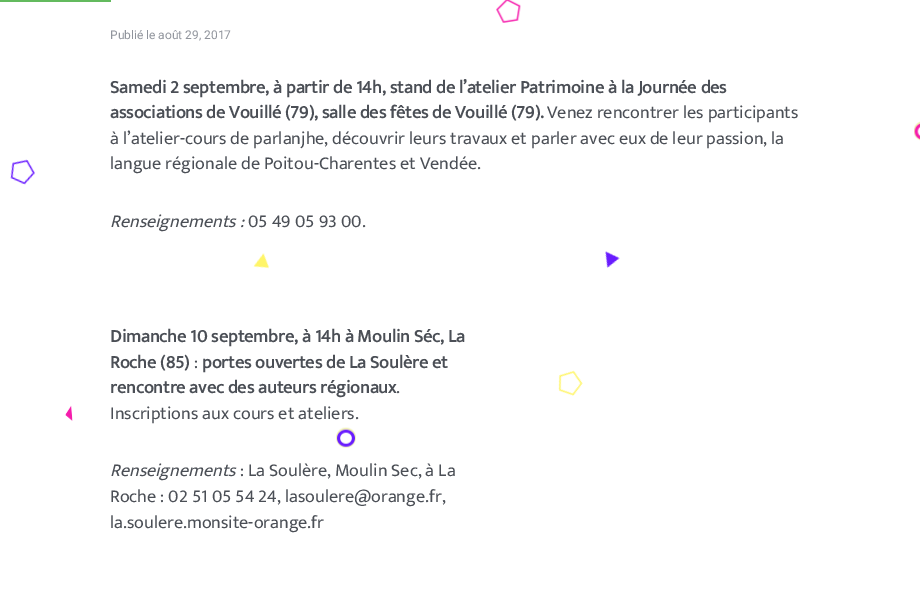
%!PS-Adobe-3.0
%%BoundingBox: 0 0 920 603
%%LanguageLevel: 3
%%Pages: 1
%%EndComments
%%BeginProlog
/fn { [ exch dup neg 0 0 3 -1 roll 0 0 ] selectfont } def
/tx { moveto show } def
/bx { rectfill } def
/im { 5 dict begin { /h /w /y /x /name } { exch def } forall
  gsave x y translate w h scale
  w h 8 [w 0 0 h 0 0] name (r) file false 3 colorimage grestore end } def
%%EndProlog
%%BeginSetup
<< /PageSize [920 603] >> setpagedevice
%%EndSetup
%%Page: 1 1
0 603 translate 1 -1 scale
4 setmiterlimit
1 setgray
0 0 920 603 bx
0.388 0.729 0.369 setrgbcolor
0 0 111 2 bx
(image0.raw) 496 0 25 23 im
(image1.raw) 914 121 6 20 im
(image2.raw) 10 159 25 26 im
(image3.raw) 253 253 17 16 im
(image4.raw) 605 251 15 17 im
(image5.raw) 558 370 25 26 im
(image6.raw) 65 405 8 16 im
(image7.raw) 336 427 20 21 im
/Roboto-Regular 12 fn
0.565 0.58 0.612 setrgbcolor
(Publié le août 29, 2017) 110 39 tx
/Mukta-Bold 18.1 fn
0.294 0.31 0.337 setrgbcolor
(Samedi 2 septembre, à partir de 14h, stand de l’atelier Patrimoine à la Journée des) 110 93 tx
(associations de Vouillé \(79\), salle des fêtes de Vouillé \(79\).) 110 118 tx
/Mukta-Regular 18.1 fn
(Venez rencontrer les participants) 547 118 tx
(à l’atelier-cours de parlanjhe, découvrir leurs travaux et parler avec eux de leur passion, la) 110 144 tx
(langue régionale de Poitou-Charentes et Vendée.) 110 169 tx
/Mukta-Italic 18.1 fn
(Renseignements :) 110 227 tx
/Mukta-Regular 18.1 fn
(05 49 05 93 00.) 248 227 tx
/Mukta-Bold 18.1 fn
(Dimanche 10 septembre, à 14h à Moulin Séc, La) 110 342 tx
(Roche \(85\)) 110 368 tx
/Mukta-Regular 18.1 fn
(:) 194 368 tx
/Mukta-Bold 18.1 fn
(portes ouvertes de La Soulère et) 202 368 tx
(rencontre avec des auteurs régionaux) 110 393 tx
/Mukta-Regular 18.1 fn
(.) 396 393 tx
(Inscriptions aux cours et ateliers.) 110 419 tx
/Mukta-Italic 18.1 fn
(Renseignements) 110 476 tx
/Mukta-Regular 18.1 fn
(: La Soulère, Moulin Sec, à La) 240 476 tx
(Roche : 02 51 05 54 24, lasoulere@orange.fr,) 110 502 tx
(la.soulere.monsite-orange.fr) 110 528 tx
showpage
%%EOF
